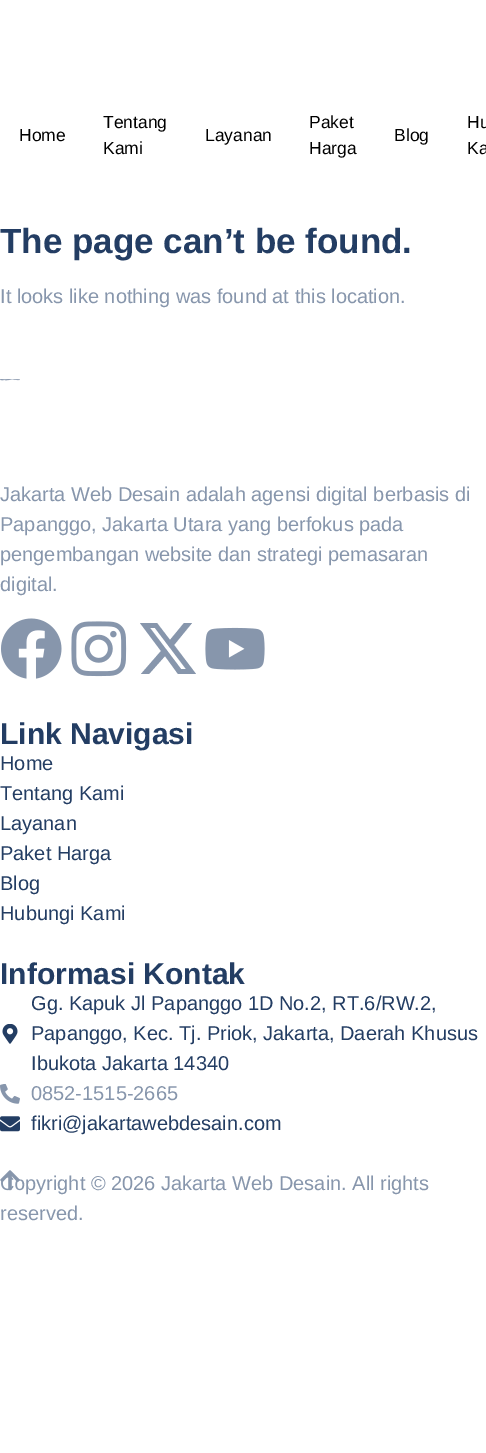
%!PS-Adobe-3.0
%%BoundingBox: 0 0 486 1453
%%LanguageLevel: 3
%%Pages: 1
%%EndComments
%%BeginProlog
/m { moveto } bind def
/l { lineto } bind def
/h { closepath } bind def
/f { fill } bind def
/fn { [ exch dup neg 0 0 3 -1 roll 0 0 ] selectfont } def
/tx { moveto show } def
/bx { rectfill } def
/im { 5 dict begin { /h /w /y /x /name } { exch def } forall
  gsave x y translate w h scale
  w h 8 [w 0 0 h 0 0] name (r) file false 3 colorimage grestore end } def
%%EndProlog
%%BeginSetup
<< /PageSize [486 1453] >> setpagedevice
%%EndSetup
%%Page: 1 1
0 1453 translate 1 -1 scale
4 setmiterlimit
1 setgray
0 0 486 1453 bx
/LiberationSans-Regular 17.5 fn
0 setgray
(Home) 19 141 tx
(Tentang) 103 128 tx
(Kami) 103 154 tx
(Layanan) 205 141 tx
(Paket) 309 128 tx
(Harga) 309 154 tx
(Blog) 394 141 tx
(Hu) 467 128 tx
(Ka) 467 154 tx
/LiberationSans-Bold 35 fn
0.137 0.239 0.388 setrgbcolor
(The page can’t be found.) 0 253 tx
/LiberationSans-Regular 20 fn
0.529 0.588 0.675 setrgbcolor
(It looks like nothing was found at this location.) 0 303 tx
(image0.raw) 0 379 20 2 im
(Jakarta Web Desain adalah agensi digital berbasis di) 0 501 tx
(Papanggo, Jakarta Utara yang berfokus pada) 0 531 tx
(pengembangan website dan strategi pemasaran) 0 561 tx
(digital.) 0 591 tx
(image1.raw) 1 618 61 61 im
(image2.raw) 71 621 56 56 im
184 623 m 192 623 l 174 645 l 196 674 l 178 674 l 165 656 l 149 674 l 141 674 l 161 651 l 140 623 l 157 623 l 170 640 l h 181 669 m 186 669 l 155 628 l 150 628 l h f
(image3.raw) 205 627 60 43 im
/LiberationSans-Bold 30 fn
0.137 0.239 0.388 setrgbcolor
(Link Navigasi) 0 744 tx
/LiberationSans-Regular 20 fn
(Home) 0 770 tx
(Tentang Kami) 0 800 tx
(Layanan) 0 830 tx
(Paket Harga) 0 860 tx
(Blog) 0 890 tx
(Hubungi Kami) 0 920 tx
/LiberationSans-Bold 30 fn
(Informasi Kontak) 0 984 tx
(image4.raw) 2 1024 16 20 im
/LiberationSans-Regular 20 fn
(Gg. Kapuk Jl Papanggo 1D No.2, RT.6/RW.2,) 31 1010 tx
(Papanggo, Kec. Tj. Priok, Jakarta, Daerah Khusus) 31 1040 tx
(Ibukota Jakarta 14340) 31 1070 tx
(image5.raw) 0 1084 20 20 im
0.529 0.588 0.675 setrgbcolor
(0852-1515-2665) 31 1100 tx
(image6.raw) 0 1116 20 16 im
0.137 0.239 0.388 setrgbcolor
(fikri@jakartawebdesain.com) 31 1130 tx
0.529 0.588 0.675 setrgbcolor
(opyright © 2026 Jakarta Web Desain. All rights) 14 1190 tx
(image7.raw) 0 1170 20 21 im
(reserved.) 0 1220 tx
showpage
%%EOF
